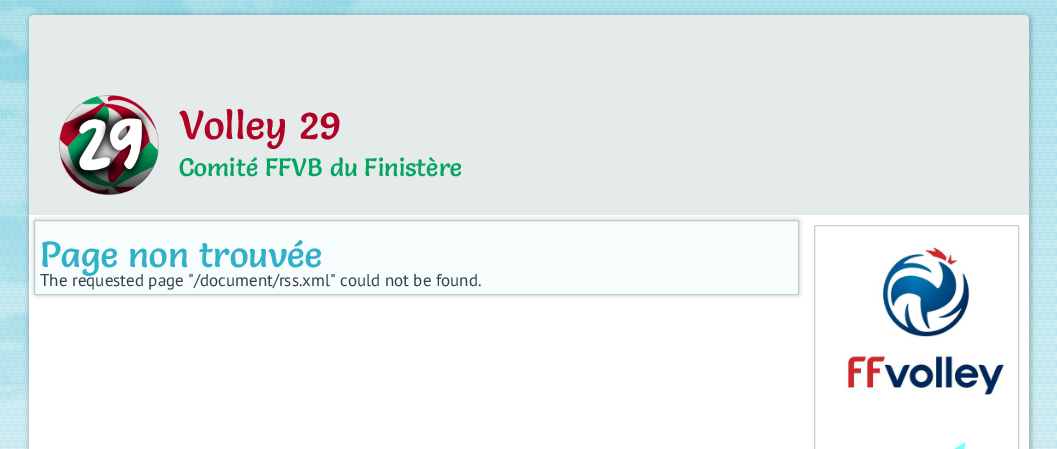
%!PS-Adobe-3.0
%%BoundingBox: 0 0 1057 449
%%LanguageLevel: 3
%%Pages: 1
%%EndComments
%%BeginProlog
/f { fill } bind def
/S { stroke } bind def
/q { gsave } bind def
/Q { grestore } bind def
/fn { [ exch dup neg 0 0 3 -1 roll 0 0 ] selectfont } def
/tx { moveto show } def
/bx { rectfill } def
/al { dup .setfillconstantalpha .setstrokeconstantalpha } def
/rr { 5 dict begin { /r /h /w /y /x } { exch def } forall
  x r add y moveto x w add y 2 copy h add r arct x w add y h add x 1 index r arct
  x y h add x y r arct x y 2 copy exch w add exch r arct closepath end } def
/sh { 12 dict begin { /a /b /q /h /w /y /x } { exch def } forall gsave /was 0 def
  9 -2 -9 { dup b mul 4 div /e exch def 1 sub .425 mul 2.718 exch exp 1 add a .99 .min exch div /now exch def
    1 1 now sub 1 was sub div sub al /was now def
    w h .min e 2 mul add 0 gt { x e sub y e sub w e 2 mul add h e 2 mul add
      q e add b .6 mul add w h .min 2 div e add .min 0 .max rr fill } if } for grestore end } def
/im { 5 dict begin { /h /w /y /x /name } { exch def } forall
  gsave x y translate w h scale
  w h 8 [w 0 0 h 0 0] name (r) file false 3 colorimage grestore end } def
%%EndProlog
%%BeginSetup
<< /PageSize [1057 449] /PageUsesTransparency true >> setpagedevice
%%EndSetup
%%Page: 1 1
0 .pushpdf14devicefilter
0 449 translate 1 -1 scale
4 setmiterlimit
1 setgray
0 0 1057 449 bx
(image0.raw) 0 0 1057 449 im
0 setgray
28 14 1004 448 7 2 0.2 sh
1 setgray
29 15 1000 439 5 rr f
(image1.raw) 29 15 1000 200 im
(image2.raw) 59 95 100 100 im
/Salsa-Regular 40 fn
0.698 0.012 0.149 setrgbcolor
(Volley 29) 179 139 tx
/Salsa-Regular 25 fn
0.012 0.647 0.38 setrgbcolor
(Comité FFVB du Finistère) 179 176 tx
0 setgray
32 218 769 79 4 1.5 0.1 sh
0.969 0.988 0.992 setrgbcolor
34.5 220.5 764 74 1.5 rr q f Q
0.722 0.808 0.8 setrgbcolor
S
/Salsa-Regular 36 fn
0.192 0.69 0.788 setrgbcolor
(Page non trouvée) 40 267 tx
/PTSans-Regular 17 fn
0.204 0.267 0.275 setrgbcolor
(The requested page "/document/rss.xml" could not be found.) 40 286 tx
0.757 0.812 0.82 setrgbcolor
814.5 225.5 204 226 1.5 rr S
(image3.raw) 845 244 159 155 im
(image4.raw) 955 442 11 7 im
.poppdf14devicefilter showpage
%%EOF
